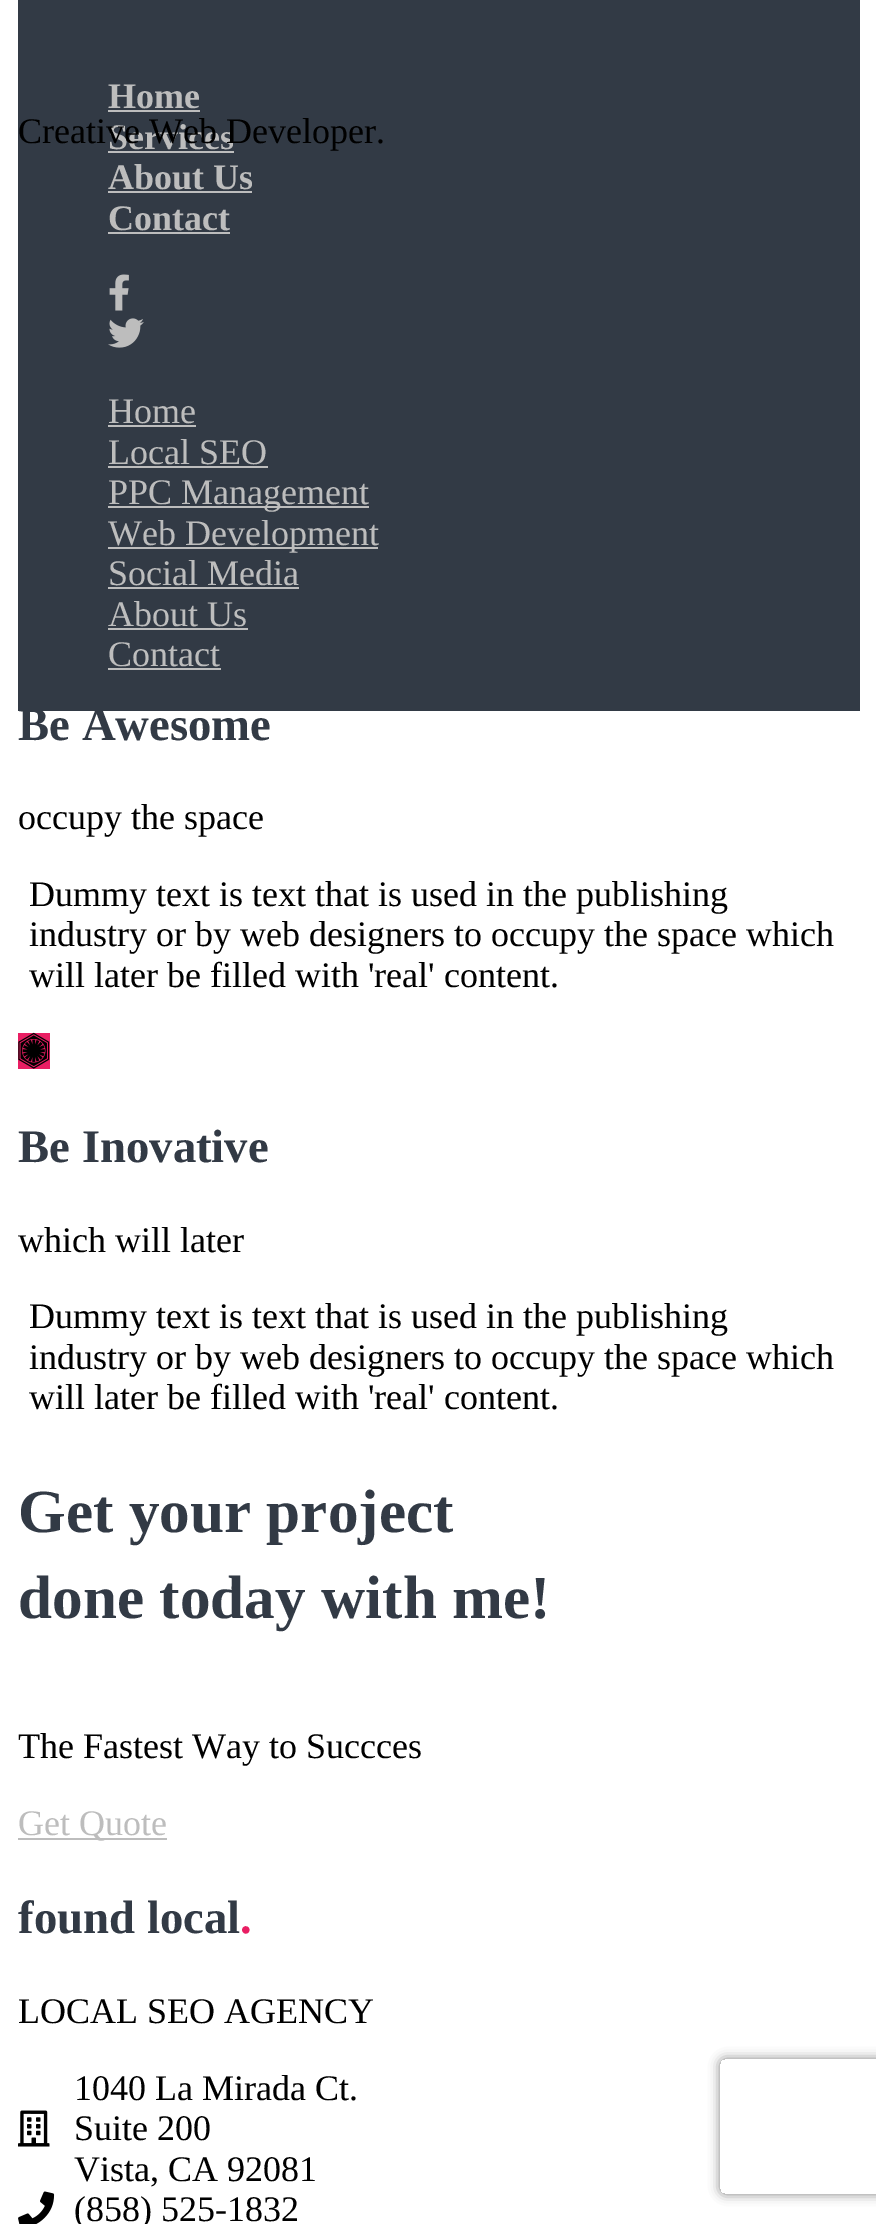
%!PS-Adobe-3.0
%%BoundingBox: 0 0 876 2224
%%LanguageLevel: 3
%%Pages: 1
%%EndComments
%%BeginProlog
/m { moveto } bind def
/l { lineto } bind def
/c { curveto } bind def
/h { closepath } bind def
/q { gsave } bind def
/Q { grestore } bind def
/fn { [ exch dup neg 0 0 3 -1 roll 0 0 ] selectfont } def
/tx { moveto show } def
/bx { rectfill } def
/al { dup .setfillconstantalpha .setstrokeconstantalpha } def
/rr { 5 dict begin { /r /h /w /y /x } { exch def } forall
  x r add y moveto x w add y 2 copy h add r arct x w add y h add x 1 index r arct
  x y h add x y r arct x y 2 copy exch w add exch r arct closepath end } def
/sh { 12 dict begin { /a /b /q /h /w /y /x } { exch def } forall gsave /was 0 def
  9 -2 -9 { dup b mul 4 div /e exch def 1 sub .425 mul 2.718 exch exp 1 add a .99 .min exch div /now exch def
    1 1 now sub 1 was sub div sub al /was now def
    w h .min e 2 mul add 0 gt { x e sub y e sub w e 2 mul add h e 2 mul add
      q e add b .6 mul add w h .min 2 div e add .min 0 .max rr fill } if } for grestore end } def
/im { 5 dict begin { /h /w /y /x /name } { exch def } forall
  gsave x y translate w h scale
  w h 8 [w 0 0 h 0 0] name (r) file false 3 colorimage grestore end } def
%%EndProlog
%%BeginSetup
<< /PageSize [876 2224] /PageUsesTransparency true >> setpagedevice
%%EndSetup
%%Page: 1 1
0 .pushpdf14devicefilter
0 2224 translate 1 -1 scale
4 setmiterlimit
1 setgray
0 0 876 2224 bx
0.196 0.227 0.271 setrgbcolor
18 0 842 711 bx
/LiberationSerif-Bold 36 fn
0.741 setgray
(Home) 108 108 tx
108 110 92 2 bx
(Services) 108 149 tx
108 151 126 2 bx
(About Us) 108 189 tx
108 191 144 2 bx
(Contact) 108 230 tx
108 232 122 2 bx
(image0.raw) 109 274 20 37 im
(image1.raw) 108 318 36 30 im
/LiberationSerif-Regular 36 fn
(Home) 108 423 tx
108 425 88 2 bx
(Local SEO) 108 464 tx
108 466 160 2 bx
108 506 261 2 bx
(PPC Management) 108 504 tx
108 547 270 2 bx
(Web Development) 108 545 tx
(Social Media) 108 585 tx
108 587 191 2 bx
(About Us) 108 626 tx
108 628 140 2 bx
(Contact) 108 666 tx
108 668 113 2 bx
0 setgray
(Creative Web Developer.) 18 143 tx
/LiberationSerif-Bold 46.75 fn
0.196 0.227 0.271 setrgbcolor
(Be Awesome) 18 740 tx
/LiberationSerif-Regular 36 fn
0 setgray
(occupy the space) 18 829 tx
(Dummy text is text that is used in the publishing) 29 906 tx
(industry or by web designers to occupy the space which) 29 946 tx
(will later be filled with 'real' content.) 29 987 tx
0.914 0.118 0.388 setrgbcolor
18 1033 32 36 bx
(image2.raw) 18 1032 32 37 im
/LiberationSerif-Bold 46.75 fn
0.196 0.227 0.271 setrgbcolor
(Be Inovative) 18 1162 tx
/LiberationSerif-Regular 36 fn
0 setgray
(which will later) 18 1252 tx
(Dummy text is text that is used in the publishing) 29 1328 tx
(industry or by web designers to occupy the space which) 29 1369 tx
(will later be filled with 'real' content.) 29 1409 tx
/LiberationSerif-Bold 61.25 fn
0.196 0.227 0.271 setrgbcolor
(Get your project) 18 1532 tx
(done today with me!) 18 1618 tx
/LiberationSerif-Regular 36 fn
0 setgray
(The Fastest Way to Succces) 18 1758 tx
0.741 setgray
18 1838 149 2 bx
(Get Quote) 18 1835 tx
/LiberationSerif-Bold 46.75 fn
0.196 0.227 0.271 setrgbcolor
(found local) 18 1933 tx
0.914 0.118 0.388 setrgbcolor
(.) 240 1933 tx
/LiberationSerif-Regular 36 fn
0 setgray
(LOCAL SEO AGENCY) 18 2023 tx
(image3.raw) 18 2110 32 37 im
(1040 La Mirada Ct.) 74 2100 tx
(Suite 200) 74 2140 tx
(Vista, CA 92081) 74 2181 tx
(image4.raw) 18 2191 37 33 im
(\(858\) 525-1832) 74 2221 tx
q
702 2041 m 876 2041 l 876 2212 l 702 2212 l h 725 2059 m 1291 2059 l 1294 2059 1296 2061 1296 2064 c 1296 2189 l 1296 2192 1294 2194 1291 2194 c 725 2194 l 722 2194 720 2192 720 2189 c 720 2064 l 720 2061 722 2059 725 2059 c h eoclip newpath
0.502 setgray
720 2059 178 135 5 5.5 1 sh
Q
.poppdf14devicefilter showpage
%%EOF
